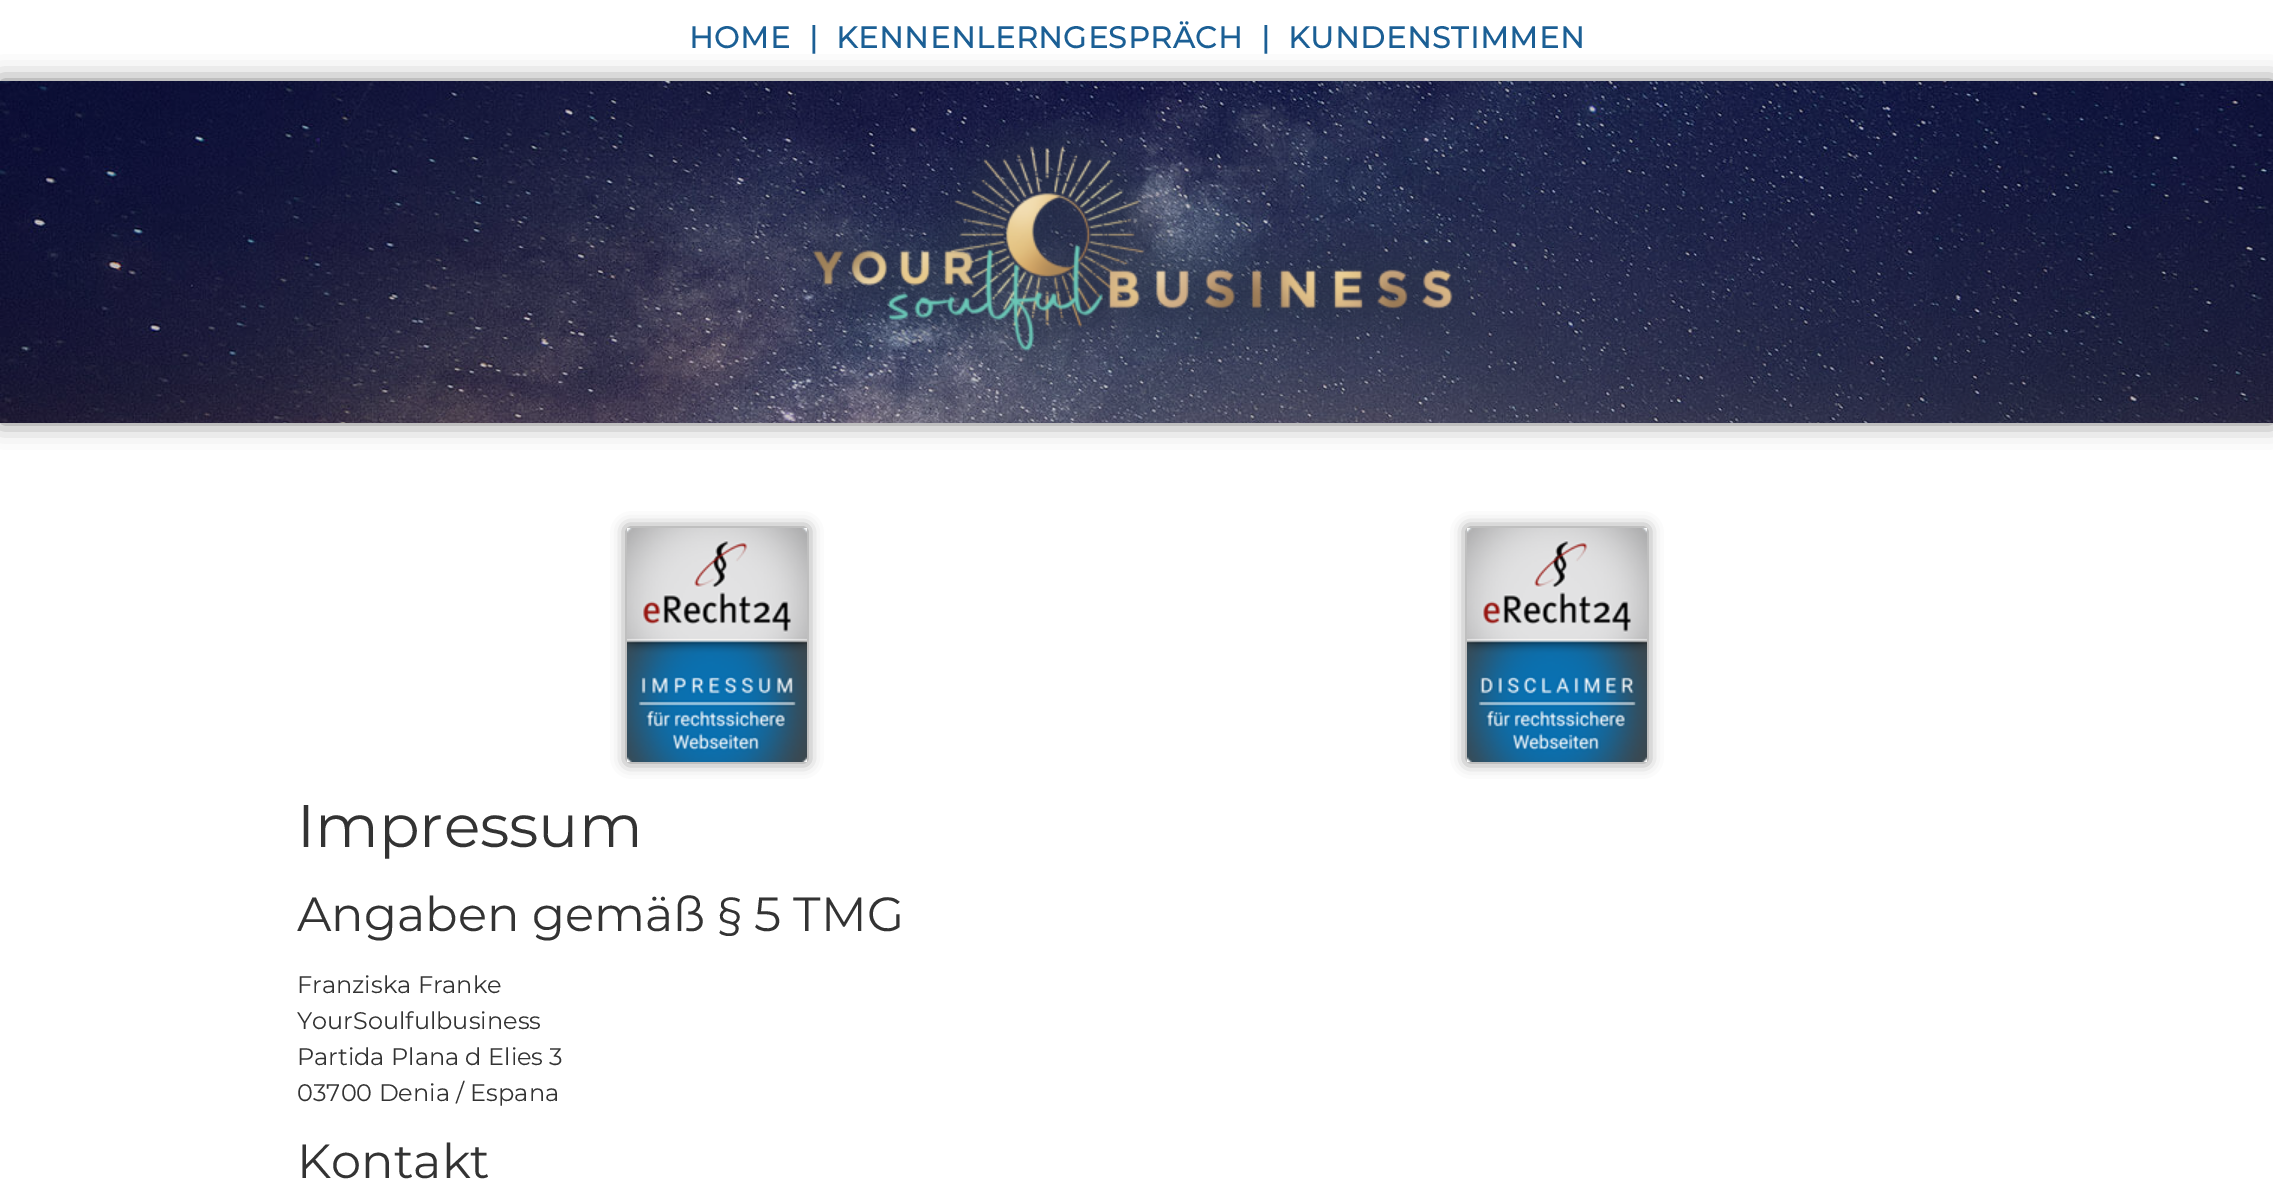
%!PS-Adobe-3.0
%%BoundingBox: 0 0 2273 1193
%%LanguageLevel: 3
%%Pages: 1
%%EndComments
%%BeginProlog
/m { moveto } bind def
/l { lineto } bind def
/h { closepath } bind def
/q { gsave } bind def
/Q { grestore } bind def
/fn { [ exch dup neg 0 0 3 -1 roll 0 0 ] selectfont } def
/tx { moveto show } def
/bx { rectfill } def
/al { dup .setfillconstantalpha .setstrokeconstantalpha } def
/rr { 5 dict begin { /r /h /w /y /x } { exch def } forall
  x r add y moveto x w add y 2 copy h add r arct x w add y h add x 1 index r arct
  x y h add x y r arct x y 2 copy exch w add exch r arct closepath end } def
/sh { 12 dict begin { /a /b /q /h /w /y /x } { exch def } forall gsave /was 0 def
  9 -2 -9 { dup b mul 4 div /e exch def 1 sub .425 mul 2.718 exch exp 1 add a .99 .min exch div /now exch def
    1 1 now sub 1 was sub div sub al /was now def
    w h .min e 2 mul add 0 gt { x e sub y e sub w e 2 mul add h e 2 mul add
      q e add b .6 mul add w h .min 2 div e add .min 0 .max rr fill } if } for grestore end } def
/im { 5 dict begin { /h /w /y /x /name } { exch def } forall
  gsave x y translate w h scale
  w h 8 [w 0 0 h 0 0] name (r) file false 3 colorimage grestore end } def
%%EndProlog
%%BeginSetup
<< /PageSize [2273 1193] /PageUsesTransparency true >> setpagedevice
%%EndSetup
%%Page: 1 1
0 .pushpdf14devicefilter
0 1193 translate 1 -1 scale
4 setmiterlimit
1 setgray
0 0 2273 1193 bx
/Montserrat-Bold 30 fn
0.106 0.373 0.584 setrgbcolor
689 48 m 0.9 0 (HOME) ashow
809 48 m 0.9 0 (|) ashow
836 48 m 0.9 0 (KENNENLERNGESPRÄCH) ashow
1261 48 m 0.9 0 (|) ashow
1288 48 m 0.9 0 (KUNDENSTIMMEN) ashow
0 setgray
0 81 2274 342 0 12 0.5 sh
(image0.raw) 0 81 2273 342 im
(image1.raw) 782 120 698 264 im
q
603 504 m 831 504 l 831 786 l 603 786 l h 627 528 m 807 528 l 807 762 l 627 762 l h eoclip newpath
627 528 180 234 0 7.5 0.5 sh
Q
(image2.raw) 627 528 180 234 im
q
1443 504 m 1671 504 l 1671 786 l 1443 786 l h 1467 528 m 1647 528 l 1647 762 l 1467 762 l h eoclip newpath
1467 528 180 234 0 7.5 0.5 sh
Q
(image3.raw) 1467 528 180 234 im
/Montserrat-Regular 60 fn
0.2 setgray
(Impressum) 297 847 tx
/Montserrat-Regular 48 fn
(Angaben gemäß § 5 TMG) 297 931 tx
/Montserrat-Regular 24 fn
(Franziska Franke) 297 993 tx
(YourSoulfulbusiness) 297 1029 tx
(Partida Plana d Elies 3) 297 1065 tx
(03700 Denia / Espana) 297 1101 tx
/Montserrat-Regular 48 fn
(Kontakt) 297 1178 tx
.poppdf14devicefilter showpage
%%EOF
